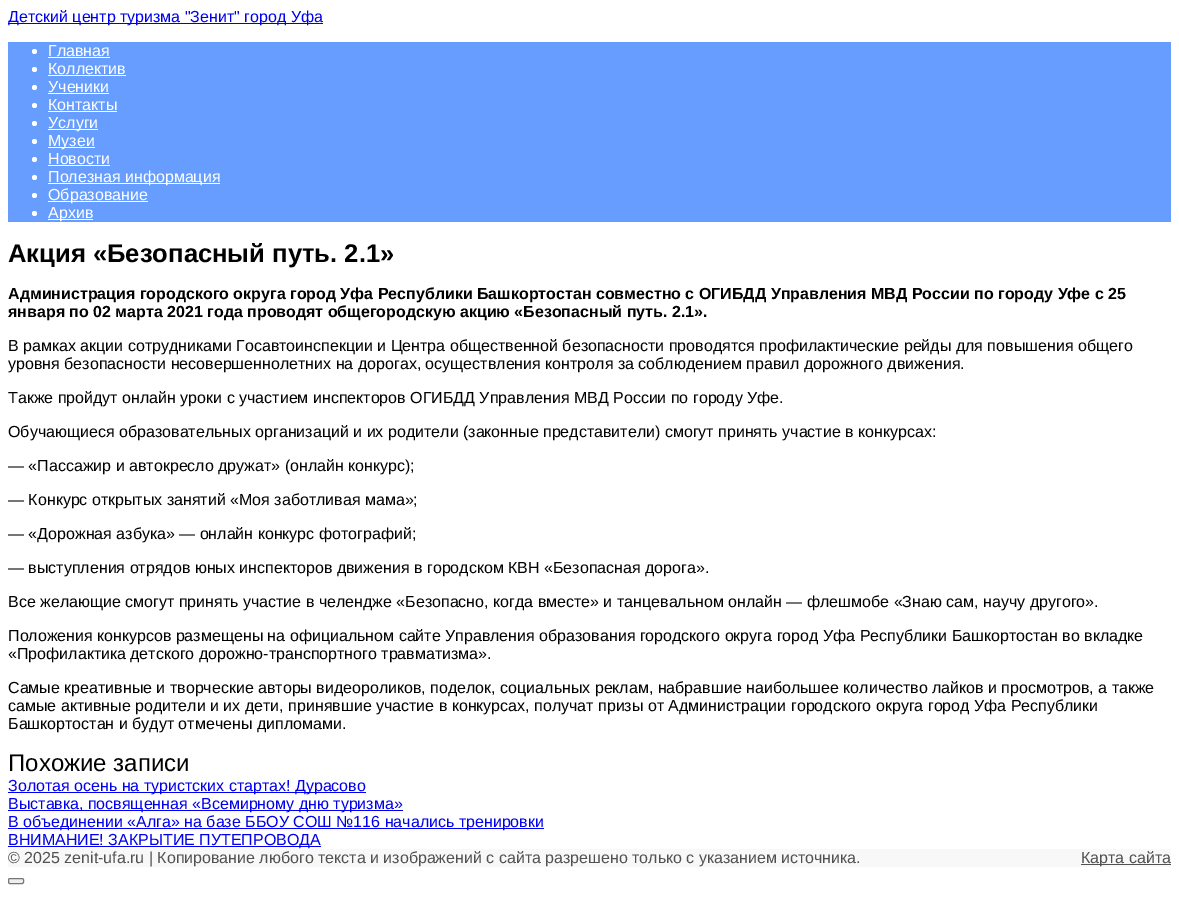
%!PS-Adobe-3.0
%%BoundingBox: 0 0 1179 903
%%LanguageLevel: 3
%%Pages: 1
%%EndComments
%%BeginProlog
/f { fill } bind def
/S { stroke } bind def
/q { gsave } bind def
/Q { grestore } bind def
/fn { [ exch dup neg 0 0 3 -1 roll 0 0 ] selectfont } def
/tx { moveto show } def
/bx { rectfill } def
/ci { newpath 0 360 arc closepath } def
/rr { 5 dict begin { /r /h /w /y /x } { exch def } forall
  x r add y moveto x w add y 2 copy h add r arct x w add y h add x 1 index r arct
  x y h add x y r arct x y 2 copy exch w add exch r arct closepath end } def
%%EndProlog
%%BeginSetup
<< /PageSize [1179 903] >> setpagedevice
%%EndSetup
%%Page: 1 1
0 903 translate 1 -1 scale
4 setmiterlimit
1 setgray
0 0 1179 903 bx
0 0 0.933 setrgbcolor
8 23 315 1 bx
/LiberationSans-Regular 16 fn
(Детский центр туризма "Зенит" город Уфа) 8 22 tx
0.4 0.616 1 setrgbcolor
8 42 1163 180 bx
1 setgray
34.5 51.5 2.5 ci f
(Главная) 48 56 tx
48 57 62 1 bx
34.5 69.5 2.5 ci f
(Коллектив) 48 74 tx
48 75 78 1 bx
34.5 87.5 2.5 ci f
(Ученики) 48 92 tx
48 93 61 1 bx
34.5 105.5 2.5 ci f
(Контакты) 48 110 tx
48 111 69 1 bx
34.5 123.5 2.5 ci f
48 129 50 1 bx
(Услуги) 48 128 tx
34.5 141.5 2.5 ci f
48 147 47 1 bx
(Музеи) 48 146 tx
34.5 159.5 2.5 ci f
(Новости) 48 164 tx
48 165 62 1 bx
34.5 177.5 2.5 ci f
48 183 172 1 bx
(Полезная информация) 48 182 tx
34.5 195.5 2.5 ci f
48 201 100 1 bx
(Образование) 48 200 tx
34.5 213.5 2.5 ci f
48 219 45 1 bx
(Архив) 48 218 tx
/LiberationSans-Bold 25.6 fn
0 setgray
(Акция «Безопасный путь. 2.1») 8 262 tx
/LiberationSans-Bold 16 fn
(Администрация городского округа город Уфа Республики Башкортостан совместно с ОГИБДД Управления МВД России по городу Уфе с 25) 8 299 tx
(января по 02 марта 2021 года проводят общегородскую акцию «Безопасный путь. 2.1».) 8 317 tx
/LiberationSans-Regular 16 fn
(В рамках акции сотрудниками Госавтоинспекции и Центра общественной безопасности проводятся профилактические рейды для повышения общего) 8 351 tx
(уровня безопасности несовершеннолетних на дорогах, осуществления контроля за соблюдением правил дорожного движения.) 8 369 tx
(Также пройдут онлайн уроки с участием инспекторов ОГИБДД Управления МВД России по городу Уфе.) 8 403 tx
(Обучающиеся образовательных организаций и их родители \(законные представители\) смогут принять участие в конкурсах:) 8 437 tx
(— «Пассажир и автокресло дружат» \(онлайн конкурс\);) 8 471 tx
(— Конкурс открытых занятий «Моя заботливая мама»;) 8 505 tx
(— «Дорожная азбука» — онлайн конкурс фотографий;) 8 539 tx
(— выступления отрядов юных инспекторов движения в городском КВН «Безопасная дорога».) 8 573 tx
(Все желающие смогут принять участие в челендже «Безопасно, когда вместе» и танцевальном онлайн — флешмобе «Знаю сам, научу другого».) 8 607 tx
(Положения конкурсов размещены на официальном сайте Управления образования городского округа город Уфа Республики Башкортостан во вкладке) 8 641 tx
(«Профилактика детского дорожно-транспортного травматизма».) 8 659 tx
(Самые креативные и творческие авторы видеороликов, поделок, социальных реклам, набравшие наибольшее количество лайков и просмотров, а также) 8 693 tx
(самые активные родители и их дети, принявшие участие в конкурсах, получат призы от Администрации городского округа город Уфа Республики) 8 711 tx
(Башкортостан и будут отмечены дипломами.) 8 729 tx
/LiberationSans-Regular 24 fn
(Похожие записи) 8 771 tx
0 0 0.933 setrgbcolor
8 792 358 1 bx
/LiberationSans-Regular 16 fn
(Золотая осень на туристских стартах! Дурасово) 8 791 tx
8 810 395 1 bx
(Выставка, посвященная «Всемирному дню туризма») 8 809 tx
8 828 536 1 bx
(В объединении «Алга» на базе ББОУ СОШ №116 начались тренировки) 8 827 tx
8 846 313 1 bx
(ВНИМАНИЕ! ЗАКРЫТИЕ ПУТЕПРОВОДА) 8 845 tx
0.973 setgray
8 849 1163 18 bx
0.318 setgray
(© 2025 zenit-ufa.ru | Копирование любого текста и изображений с сайта разрешено только с указанием источника.) 8 863 tx
1081 864 90 1 bx
(Карта сайта) 1081 863 tx
0.937 setgray
8.5 878.5 15 5 1.5 rr q f Q
0.463 setgray
S
showpage
%%EOF
